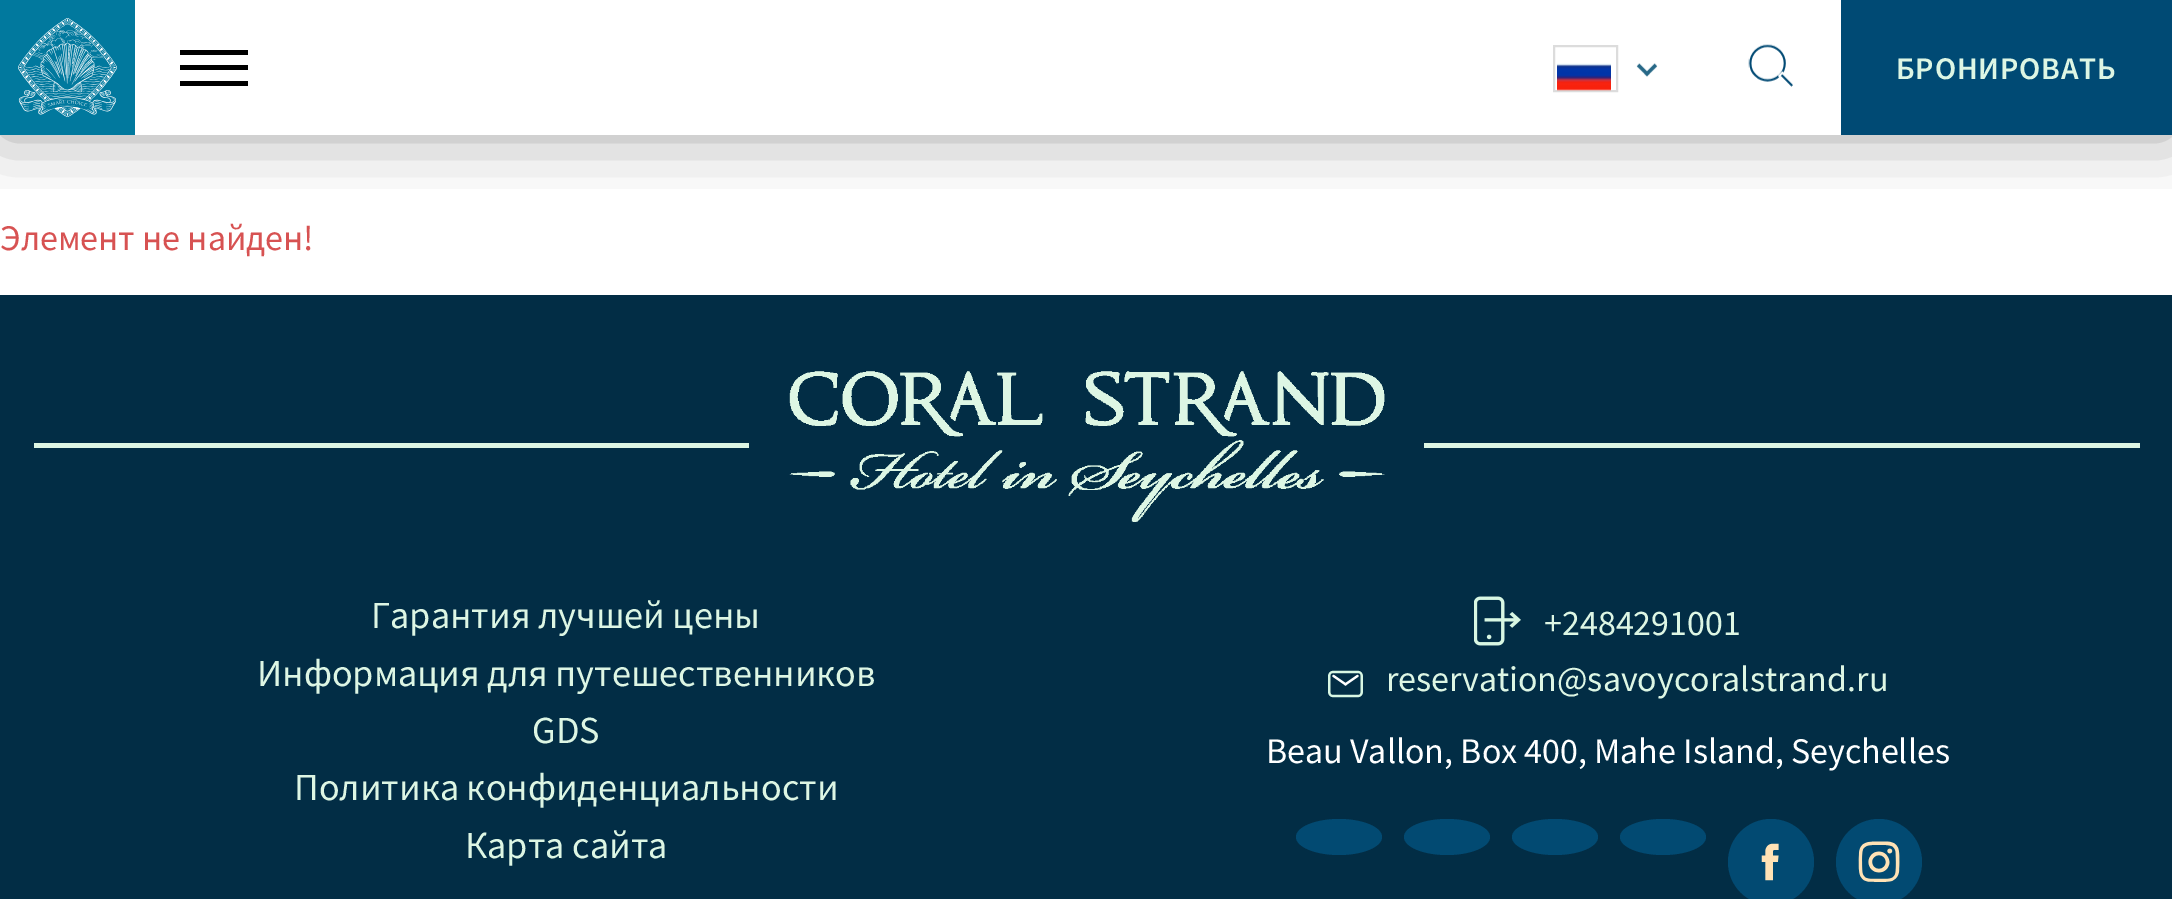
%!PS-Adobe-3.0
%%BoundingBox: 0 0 2172 899
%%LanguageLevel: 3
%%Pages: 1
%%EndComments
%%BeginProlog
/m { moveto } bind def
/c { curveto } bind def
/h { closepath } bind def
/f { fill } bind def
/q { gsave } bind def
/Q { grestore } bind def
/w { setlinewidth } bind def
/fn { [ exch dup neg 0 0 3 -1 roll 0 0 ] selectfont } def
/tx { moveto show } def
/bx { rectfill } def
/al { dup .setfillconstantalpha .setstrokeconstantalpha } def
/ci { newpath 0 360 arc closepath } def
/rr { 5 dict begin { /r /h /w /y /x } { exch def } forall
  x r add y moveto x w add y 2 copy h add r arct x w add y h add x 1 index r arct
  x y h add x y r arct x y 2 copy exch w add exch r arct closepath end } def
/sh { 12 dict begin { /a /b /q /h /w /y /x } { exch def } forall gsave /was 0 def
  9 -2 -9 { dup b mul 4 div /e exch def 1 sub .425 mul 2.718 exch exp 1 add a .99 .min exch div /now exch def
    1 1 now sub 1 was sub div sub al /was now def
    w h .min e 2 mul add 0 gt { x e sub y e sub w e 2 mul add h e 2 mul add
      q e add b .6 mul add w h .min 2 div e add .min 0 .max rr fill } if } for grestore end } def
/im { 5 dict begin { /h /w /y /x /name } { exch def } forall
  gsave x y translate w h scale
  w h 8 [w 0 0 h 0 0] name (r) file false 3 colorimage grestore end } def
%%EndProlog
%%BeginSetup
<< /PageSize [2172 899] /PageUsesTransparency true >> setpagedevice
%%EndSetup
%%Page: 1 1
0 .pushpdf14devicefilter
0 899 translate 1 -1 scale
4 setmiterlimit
1 setgray
0 0 2172 899 bx
q
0 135 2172 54 rectclip
0 setgray
0 0 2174 135 0 34 0.35 sh
Q
0.004 0.475 0.62 setrgbcolor
0 0 135 135 bx
(image0.raw) 18 18 99 99 im
0 setgray
180 65 68 5 bx
180 50 68 5 bx
180 81 68 5 bx
0.863 setgray
2 w
1554 46 63 45 rectstroke
(image1.raw) 1557 63 54 28 im
(image2.raw) 1636 63 22 14 im
(image3.raw) 1748 44 45 43 im
0 0.29 0.455 setrgbcolor
1841 0 331 135 bx
/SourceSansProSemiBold-SemiBold 31.5 fn
0.867 0.965 0.894 setrgbcolor
1896 79 m 0.8 0 (БРОНИРОВАТЬ) ashow
/SourceSansPro-Regular 36 fn
0.843 0.322 0.322 setrgbcolor
(Элемент не найден!) 0 250 tx
0.008 0.176 0.271 setrgbcolor
0 295 2172 604 bx
0.867 0.965 0.894 setrgbcolor
34 443 715 5 bx
(image4.raw) 789 371 596 151 im
1424 443 716 5 bx
/SourceSansPro-Regular 38.25 fn
(Гарантия лучшей цены) 371 628 tx
(Информация для путешественников) 257 686 tx
(GDS) 532 743 tx
(Политика конфиденциальности) 294 800 tx
(Карта сайта) 465 858 tx
(image5.raw) 1474 596 47 50 im
/SourceSansPro-Regular 36 fn
(+2484291001) 1544 635 tx
(image6.raw) 1328 670 35 28 im
(reservation@savoycoralstrand.ru) 1386 691 tx
1 setgray
(Beau Vallon, Box 400, Mahe Island, Seychelles) 1266 763 tx
0.008 0.29 0.447 setrgbcolor
1339 819 m 1362.5 819 1382 827 1382 837 c 1382 847 1362.5 855 1339 855 c 1315.5 855 1296 847 1296 837 c 1296 827 1315.5 819 1339 819 c h f
1447 819 m 1470.5 819 1490 827 1490 837 c 1490 847 1470.5 855 1447 855 c 1423.5 855 1404 847 1404 837 c 1404 827 1423.5 819 1447 819 c h f
1555 819 m 1578.5 819 1598 827 1598 837 c 1598 847 1578.5 855 1555 855 c 1531.5 855 1512 847 1512 837 c 1512 827 1531.5 819 1555 819 c h f
1663 819 m 1686.5 819 1706 827 1706 837 c 1706 847 1686.5 855 1663 855 c 1639.5 855 1620 847 1620 837 c 1620 827 1639.5 819 1663 819 c h f
1771 862 43 ci f
(image7.raw) 1761 843 18 38 im
1879 862 43 ci f
(image8.raw) 1858 841 42 41 im
.poppdf14devicefilter showpage
%%EOF
